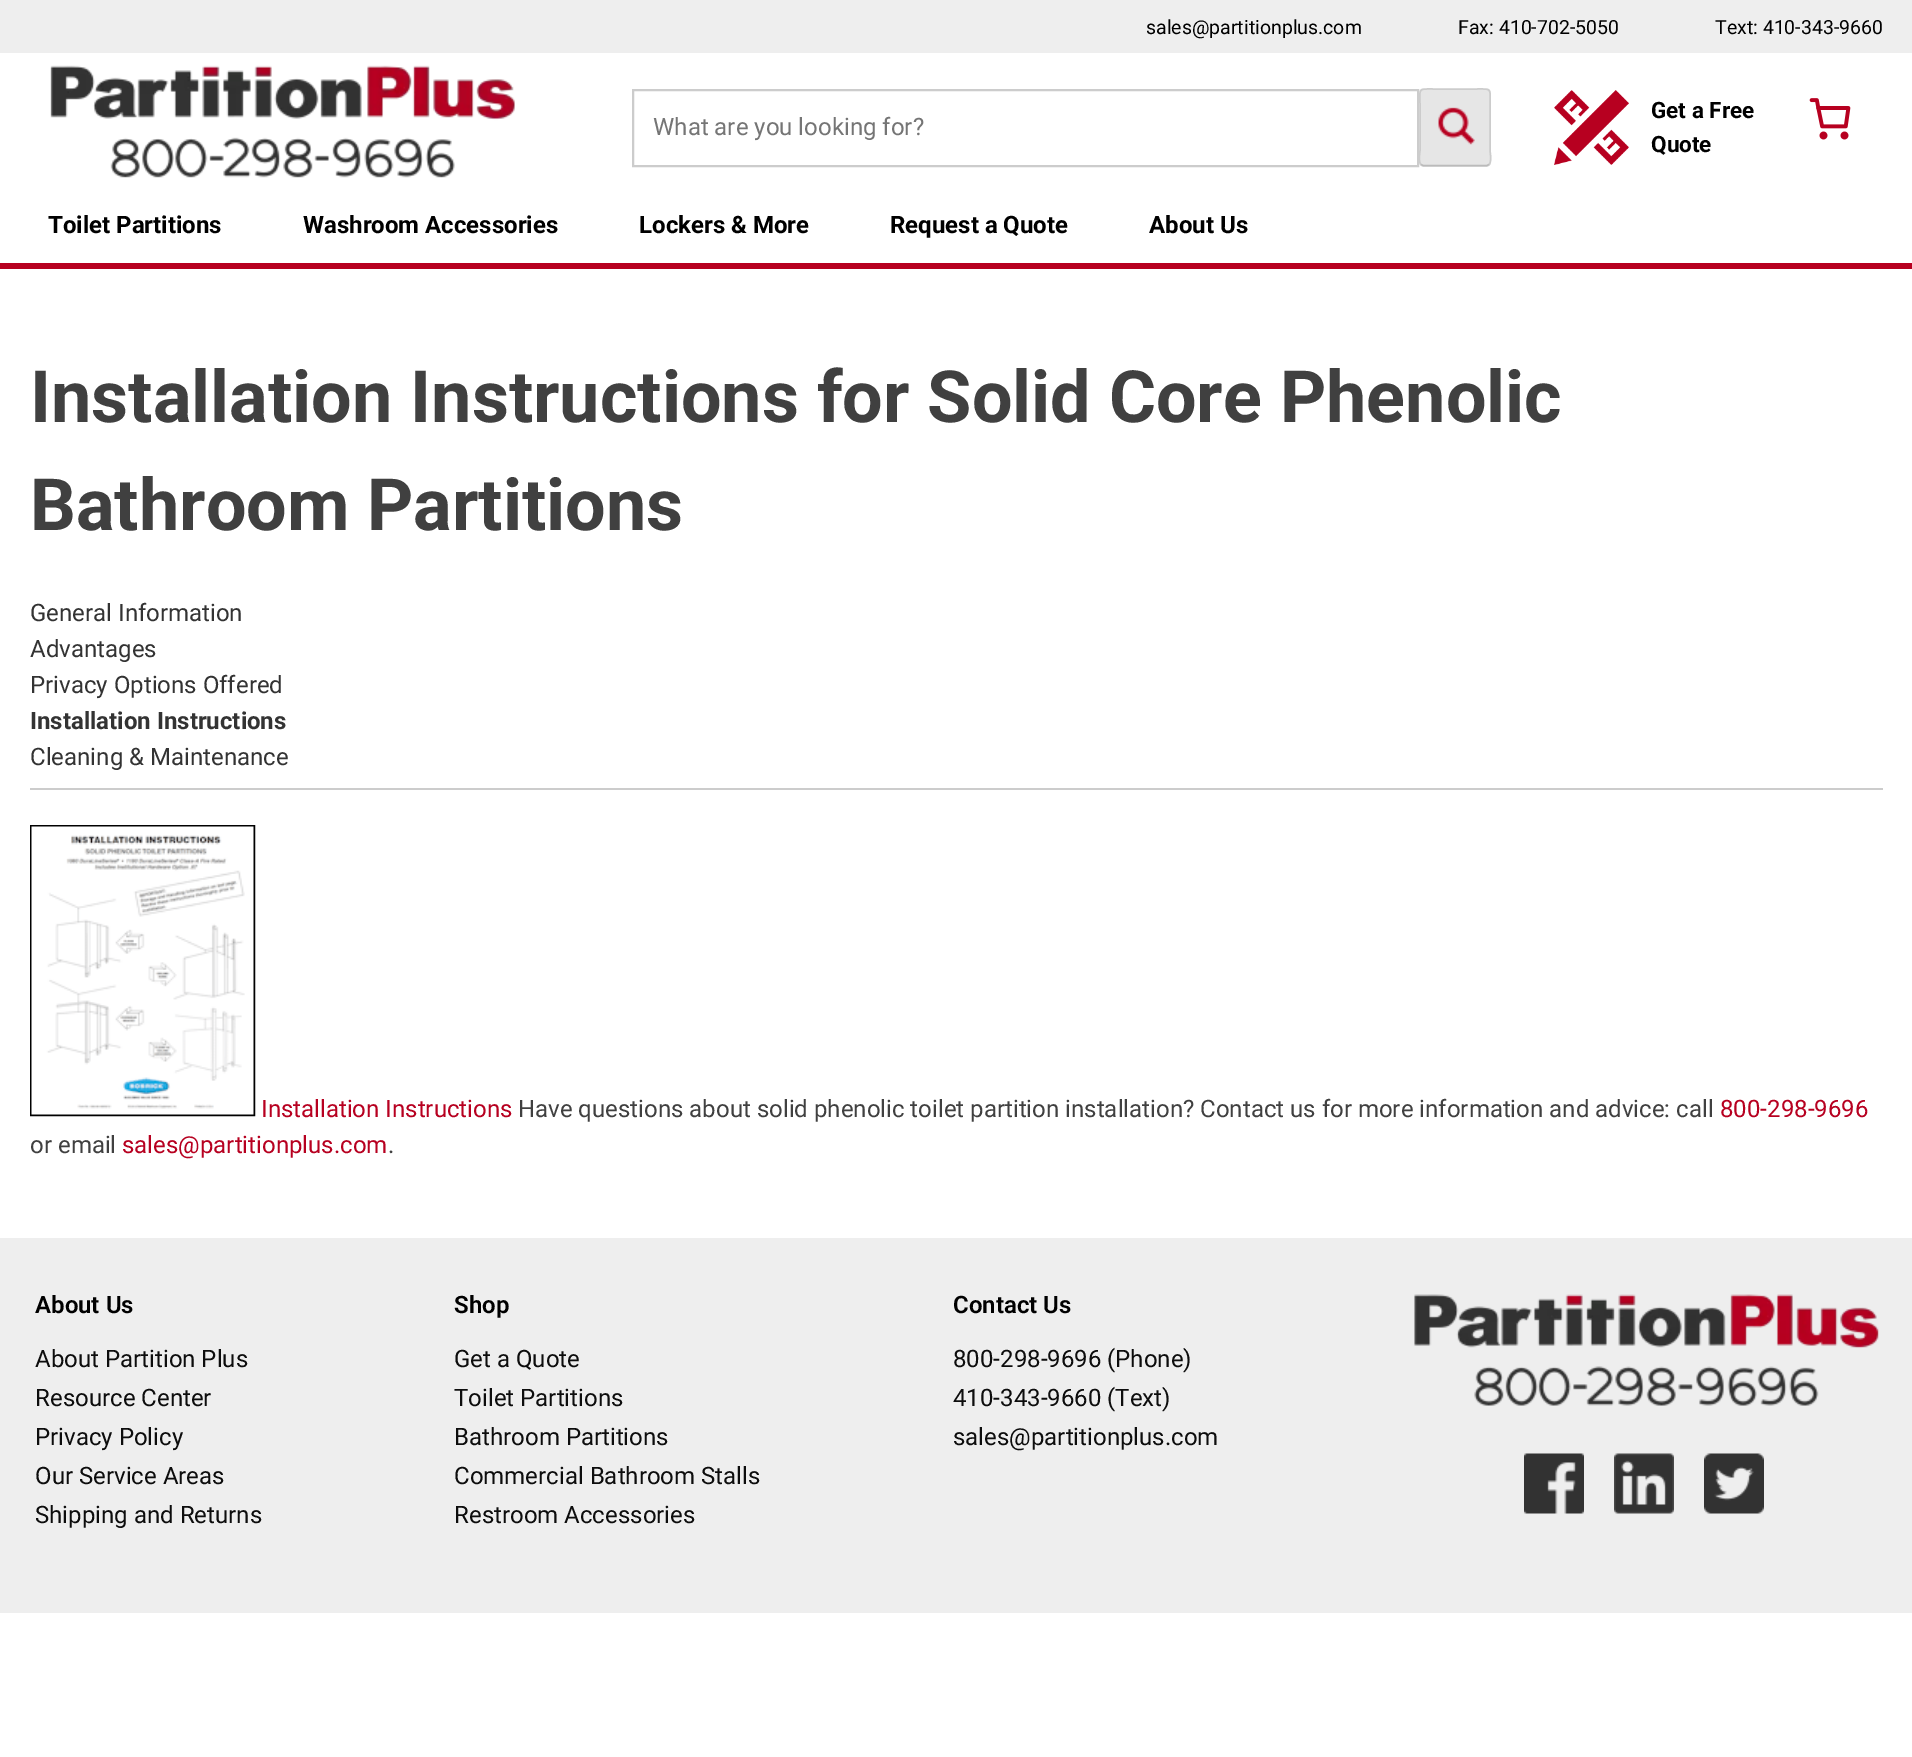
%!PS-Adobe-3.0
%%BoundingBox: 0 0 1912 1757
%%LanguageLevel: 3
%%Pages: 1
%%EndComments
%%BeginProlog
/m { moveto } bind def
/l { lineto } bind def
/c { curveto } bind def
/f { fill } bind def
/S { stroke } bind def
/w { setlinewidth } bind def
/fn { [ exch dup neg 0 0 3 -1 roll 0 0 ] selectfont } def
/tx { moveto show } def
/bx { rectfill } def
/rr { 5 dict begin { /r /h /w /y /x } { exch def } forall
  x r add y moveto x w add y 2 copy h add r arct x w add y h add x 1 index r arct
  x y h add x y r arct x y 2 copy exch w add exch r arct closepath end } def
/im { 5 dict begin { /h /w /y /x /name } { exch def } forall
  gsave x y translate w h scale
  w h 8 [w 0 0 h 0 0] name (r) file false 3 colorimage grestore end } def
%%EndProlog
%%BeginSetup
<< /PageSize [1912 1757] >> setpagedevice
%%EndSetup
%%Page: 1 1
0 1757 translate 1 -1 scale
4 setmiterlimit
1 setgray
0 0 1912 1757 bx
0.718 0 0.125 setrgbcolor
0 263 1912 6 bx
0.933 setgray
0 0 1912 53 bx
/Roboto-Regular 19.5 fn
0 setgray
(sales@partitionplus.com) 1146 34 tx
(Fax: 410-702-5050) 1458 34 tx
(Text: 410-343-9660) 1715 34 tx
(image0.raw) 50 65 465 113 im
0.8 setgray
2 w
633 90 785 76 rectstroke
/Roboto-Regular 24 fn
0.459 setgray
(What are you looking for?) 653 135 tx
0.902 setgray
1419 89 72 78 5 rr f
(image1.raw) 1438 107 37 38 im
0.733 setgray
1.5 w
1489 164.5 m 1487 165.5 l 1423 165.5 l 1421 164.5 l S
0.8 setgray
1421 164.5 m 1418 162 1420 151.5 1420 150.5 c 1420 104.5 l 1420 87.5 1417.5 89 1434 89 c 1476 89 l 1492.5 89 1490 87.5 1490 104.5 c 1490 150.5 l 1490 151.5 1492 162 1489 164.5 c S
(image2.raw) 1554 90 75 75 im
/Roboto-Bold 22.5 fn
0 setgray
(Get a Free) 1651 118 tx
(Quote) 1651 152 tx
(image3.raw) 1809 98 42 42 im
/Roboto-Bold 24 fn
(Toilet Partitions) 48 233 tx
(Washroom Accessories) 303 233 tx
(Lockers & More) 639 233 tx
(Request a Quote) 890 233 tx
(About Us) 1149 233 tx
/Roboto-Bold 72 fn
0.251 setgray
(Installation Instructions for Solid Core Phenolic) 30 422 tx
(Bathroom Partitions) 30 530 tx
/Roboto-Regular 24 fn
0.2 setgray
(General Information) 30 621 tx
(Advantages) 30 657 tx
(Privacy Options Offered) 30 693 tx
/Roboto-Bold 24 fn
(Installation Instructions) 30 729 tx
/Roboto-Regular 24 fn
(Cleaning & Maintenance) 30 765 tx
0.8 setgray
30 788 1853 2 bx
0 setgray
2 w
31 826 223 289 rectstroke
(image4.raw) 31 826 223 289 im
0.718 0 0.125 setrgbcolor
(Installation Instructions) 261 1117 tx
0.251 setgray
(Have questions about solid phenolic toilet partition installation? Contact us for more information and advice: call) 518 1117 tx
0.718 0 0.125 setrgbcolor
(800-298-9696) 1720 1117 tx
0.251 setgray
(or email) 30 1153 tx
0.718 0 0.125 setrgbcolor
(sales@partitionplus.com) 122 1153 tx
0.251 setgray
(.) 388 1153 tx
0.933 setgray
0 1238 1912 375 bx
/Roboto-SemiBold 24 fn
0 setgray
(About Us) 35 1313 tx
/Roboto-Regular 24 fn
0.051 setgray
(About Partition Plus) 35 1367 tx
(Resource Center) 35 1406 tx
(Privacy Policy) 35 1445 tx
(Our Service Areas) 35 1484 tx
(Shipping and Returns) 35 1523 tx
/Roboto-SemiBold 24 fn
0 setgray
(Shop) 454 1313 tx
/Roboto-Regular 24 fn
0.051 setgray
(Get a Quote) 454 1367 tx
(Toilet Partitions) 454 1406 tx
(Bathroom Partitions) 454 1445 tx
(Commercial Bathroom Stalls) 454 1484 tx
(Restroom Accessories) 454 1523 tx
/Roboto-SemiBold 24 fn
0 setgray
(Contact Us) 953 1313 tx
/Roboto-Regular 24 fn
0.051 setgray
(800-298-9696 \(Phone\)) 953 1367 tx
(410-343-9660 \(Text\)) 953 1406 tx
(sales@partitionplus.com) 953 1445 tx
(image5.raw) 1414 1294 465 112 im
(image6.raw) 1524 1453 60 61 im
(image7.raw) 1614 1453 60 61 im
(image8.raw) 1704 1453 60 61 im
showpage
%%EOF
